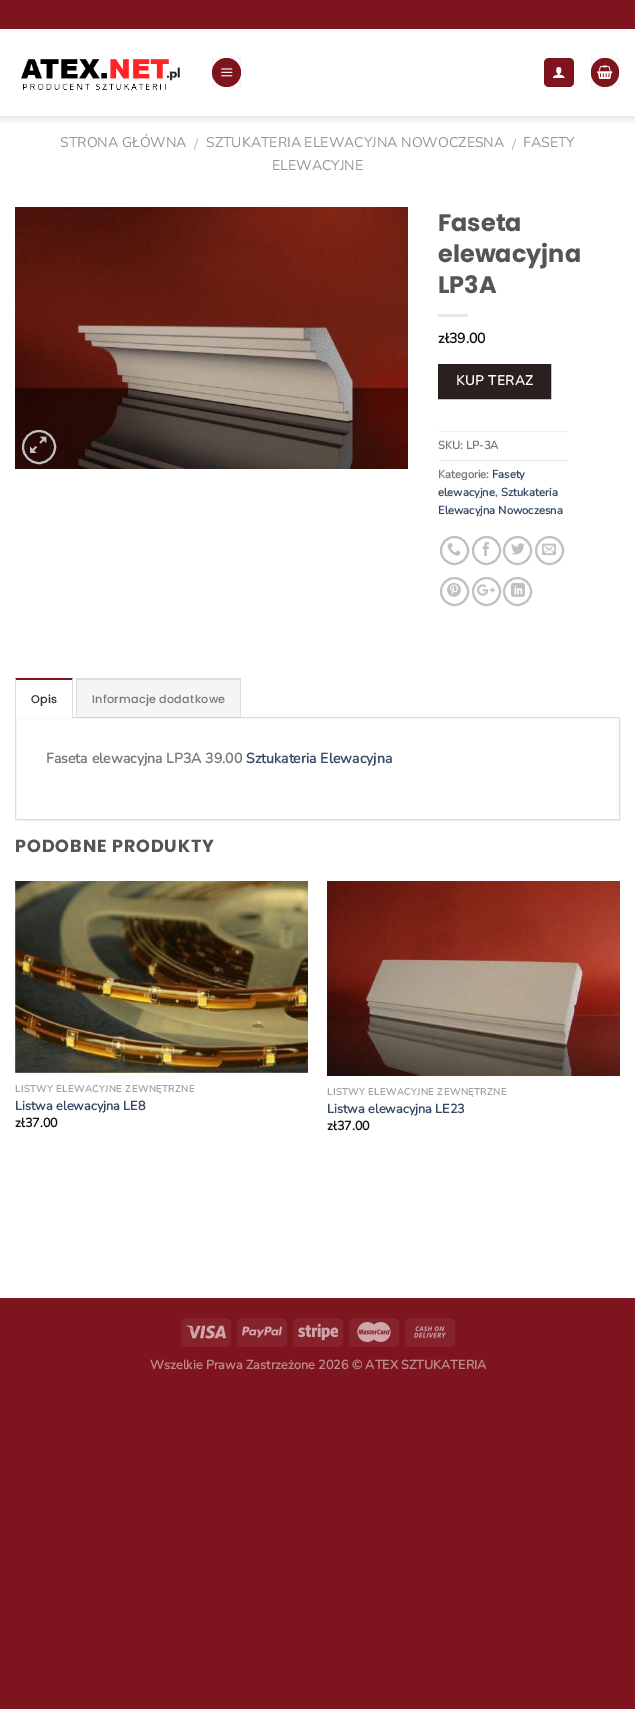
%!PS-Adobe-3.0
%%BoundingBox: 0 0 635 1709
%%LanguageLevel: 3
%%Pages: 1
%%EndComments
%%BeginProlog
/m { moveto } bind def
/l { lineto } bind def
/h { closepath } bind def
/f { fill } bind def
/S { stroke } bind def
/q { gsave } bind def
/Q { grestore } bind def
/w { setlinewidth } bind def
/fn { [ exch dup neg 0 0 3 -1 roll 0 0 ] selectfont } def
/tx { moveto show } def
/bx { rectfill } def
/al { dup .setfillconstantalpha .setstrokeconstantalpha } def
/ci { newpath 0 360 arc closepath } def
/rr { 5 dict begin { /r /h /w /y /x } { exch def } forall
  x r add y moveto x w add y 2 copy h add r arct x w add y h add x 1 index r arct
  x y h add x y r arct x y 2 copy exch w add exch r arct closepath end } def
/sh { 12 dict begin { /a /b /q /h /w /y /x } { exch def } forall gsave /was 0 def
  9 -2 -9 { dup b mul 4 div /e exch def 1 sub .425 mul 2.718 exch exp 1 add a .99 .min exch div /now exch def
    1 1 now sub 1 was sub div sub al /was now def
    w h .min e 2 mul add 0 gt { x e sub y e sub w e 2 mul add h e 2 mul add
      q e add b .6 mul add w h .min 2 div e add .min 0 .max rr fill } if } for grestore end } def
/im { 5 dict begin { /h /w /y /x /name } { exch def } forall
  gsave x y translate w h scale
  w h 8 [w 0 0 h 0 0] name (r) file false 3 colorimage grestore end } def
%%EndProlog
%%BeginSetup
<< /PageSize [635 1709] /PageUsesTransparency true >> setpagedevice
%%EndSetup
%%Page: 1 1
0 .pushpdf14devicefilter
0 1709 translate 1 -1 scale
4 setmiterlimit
0.494 0.078 0.118 setrgbcolor
0 0 635 1709 bx
1 setgray
0 29 635 1269 bx
q
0 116 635 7 rectclip
0 setgray
1 1 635 116 0 5 0.15 sh
Q
(image0.raw) 21 59 159 31 im
0.494 0.078 0.118 setrgbcolor
226.5 72.5 14.5 ci f
0.05 al
0 setgray
212.5 58.5 28 28 rectstroke
1 al
(image1.raw) 221 68 12 9 im
0.494 0.078 0.118 setrgbcolor
544 58 30 29 5 rr f
0.05 al
0 setgray
544.5 58.5 29 28 rectstroke
1 al
(image2.raw) 552 67 13 11 im
0.494 0.078 0.118 setrgbcolor
591 58 28 29 14 rr f
0.05 al
0 setgray
591.5 58.5 27 28 rectstroke
1 al
(image3.raw) 597 65 16 14 im
/Nunito-ExtraLight 14.1 fn
0.58 setgray
(STRONA GŁÓWNA) 60 147 tx
0.698 setgray
(/) 194 149 tx
0.58 setgray
(SZTUKATERIA ELEWACYJNA NOWOCZESNA) 206 147 tx
0.698 setgray
(/) 512 149 tx
0.58 setgray
(FASETY) 523 147 tx
(ELEWACYJNE) 272 170 tx
(image4.raw) 15 207 393 262 im
0.753 setgray
2 w
39 447 16 ci S
(image5.raw) 30 436 17 17 im
/Poppins-Bold 24 fn
0.333 setgray
(Faseta) 438 231 tx
(elewacyjna) 438 262 tx
(LP3A) 438 293 tx
0.902 setgray
438 314 30 3 bx
/Nunito-Bold 14.1 fn
0.067 setgray
(zł39.00) 438 343 tx
0.169 0.125 0.125 setrgbcolor
438.5 364.5 m 550.5 364.5 l 550.5 398.5 l 438.5 398.5 l h q f Q
0.161 0.118 0.118 setrgbcolor
1 w
S
/Nunito-Bold 13.5 fn
1 setgray
456 385 m 0.5 0 (KUP TERAZ) ashow
0.867 setgray
[1 1] 0 setdash
438 431.5 m 567 431.5 l S
/Nunito-Bold 11.25 fn
0.467 setgray
(SKU: LP-3A) 438 449 tx
0.867 setgray
438 460.5 m 567 460.5 l S
0.467 setgray
(Kategorie:) 438 478 tx
0.2 0.282 0.384 setrgbcolor
(Fasety) 492 478 tx
(elewacyjne) 438 496 tx
0.467 setgray
(,) 495 496 tx
0.2 0.282 0.384 setrgbcolor
(Sztukateria) 501 496 tx
(Elewacyjna Nowoczesna) 438 514 tx
0.753 setgray
2 w
[] 0 setdash
454.5 550.5 13.5 ci S
(image6.raw) 447 543 14 13 im
486.5 550.5 13.5 ci S
(image7.raw) 482 541 7 15 im
517.5 550.5 13.5 ci S
(image8.raw) 511 543 14 12 im
549.5 550.5 13.5 ci S
(image9.raw) 542 543 14 12 im
454.5 591.5 13.5 ci S
(image10.raw) 447 583 14 14 im
486.5 591.5 13.5 ci S
(image11.raw) 477 584 18 12 im
517.5 591.5 13.5 ci S
(image12.raw) 511 582 14 15 im
0.867 setgray
1 w
15.5 717.5 604 102 rectstroke
1 setgray
15 717 58 1 bx
0.494 0.078 0.118 setrgbcolor
15 678 m 73 678 l 72 680 l 16 680 l h f
0.867 setgray
73 678 m 73 718 l 72 718 l 72 680 l h 15 718 m 15 678 l 16 680 l 16 718 l h f
/Poppins-Medium 11.25 fn
0.208 setgray
31 703 m 0.25 0 (Opis) ashow
0.04 al
0 setgray
77 680 163 38 bx
1 al
0.867 setgray
76 678 165 2 bx
240 678 1 40 bx
76 678 1 40 bx
0.467 setgray
92 703 m 0.25 0 (Informacje dodatkowe) ashow
/Nunito-Bold 14.1 fn
(Faseta elewacyjna LP3A 39.00) 46 763 tx
0.2 0.282 0.384 setrgbcolor
(Sztukateria Elewacyjna) 246 763 tx
0.925 setgray
15 820 605 1 bx
/Poppins-Bold 17.6 fn
0.333 setgray
15 852 m 0.9 0 (PODOBNE PRODUKTY) ashow
(image13.raw) 15 881 293 192 im
/Nunito-Bold 9.5 fn
0.627 setgray
15 1092 m 0.5 0 (LISTWY ELEWACYJNE ZEWNĘTRZNE) ashow
/Nunito-Bold 12.7 fn
0.2 0.282 0.384 setrgbcolor
(Listwa elewacyjna LE8) 15 1110 tx
0.067 setgray
(zł37.00) 15 1127 tx
(image14.raw) 327 881 293 195 im
/Nunito-Bold 9.5 fn
0.627 setgray
327 1095 m 0.5 0 (LISTWY ELEWACYJNE ZEWNĘTRZNE) ashow
/Nunito-Bold 12.7 fn
0.2 0.282 0.384 setrgbcolor
(Listwa elewacyjna LE23) 327 1113 tx
0.067 setgray
(zł37.00) 327 1130 tx
0.525 0.133 0.173 setrgbcolor
181 1318 50 29 5 rr f
(image15.raw) 186 1325 40 14 im
237 1318 50 29 5 rr f
(image16.raw) 242 1326 40 12 im
293 1318 50 29 5 rr f
(image17.raw) 298 1323 40 18 im
349 1318 50 29 5 rr f
(image18.raw) 357 1322 34 20 im
405 1318 50 29 5 rr f
(image19.raw) 414 1326 32 12 im
0.749 0.541 0.561 setrgbcolor
(Wszelkie Prawa Zastrzeżone 2026 © ATEX SZTUKATERIA) 150 1369 tx
.poppdf14devicefilter showpage
%%EOF
